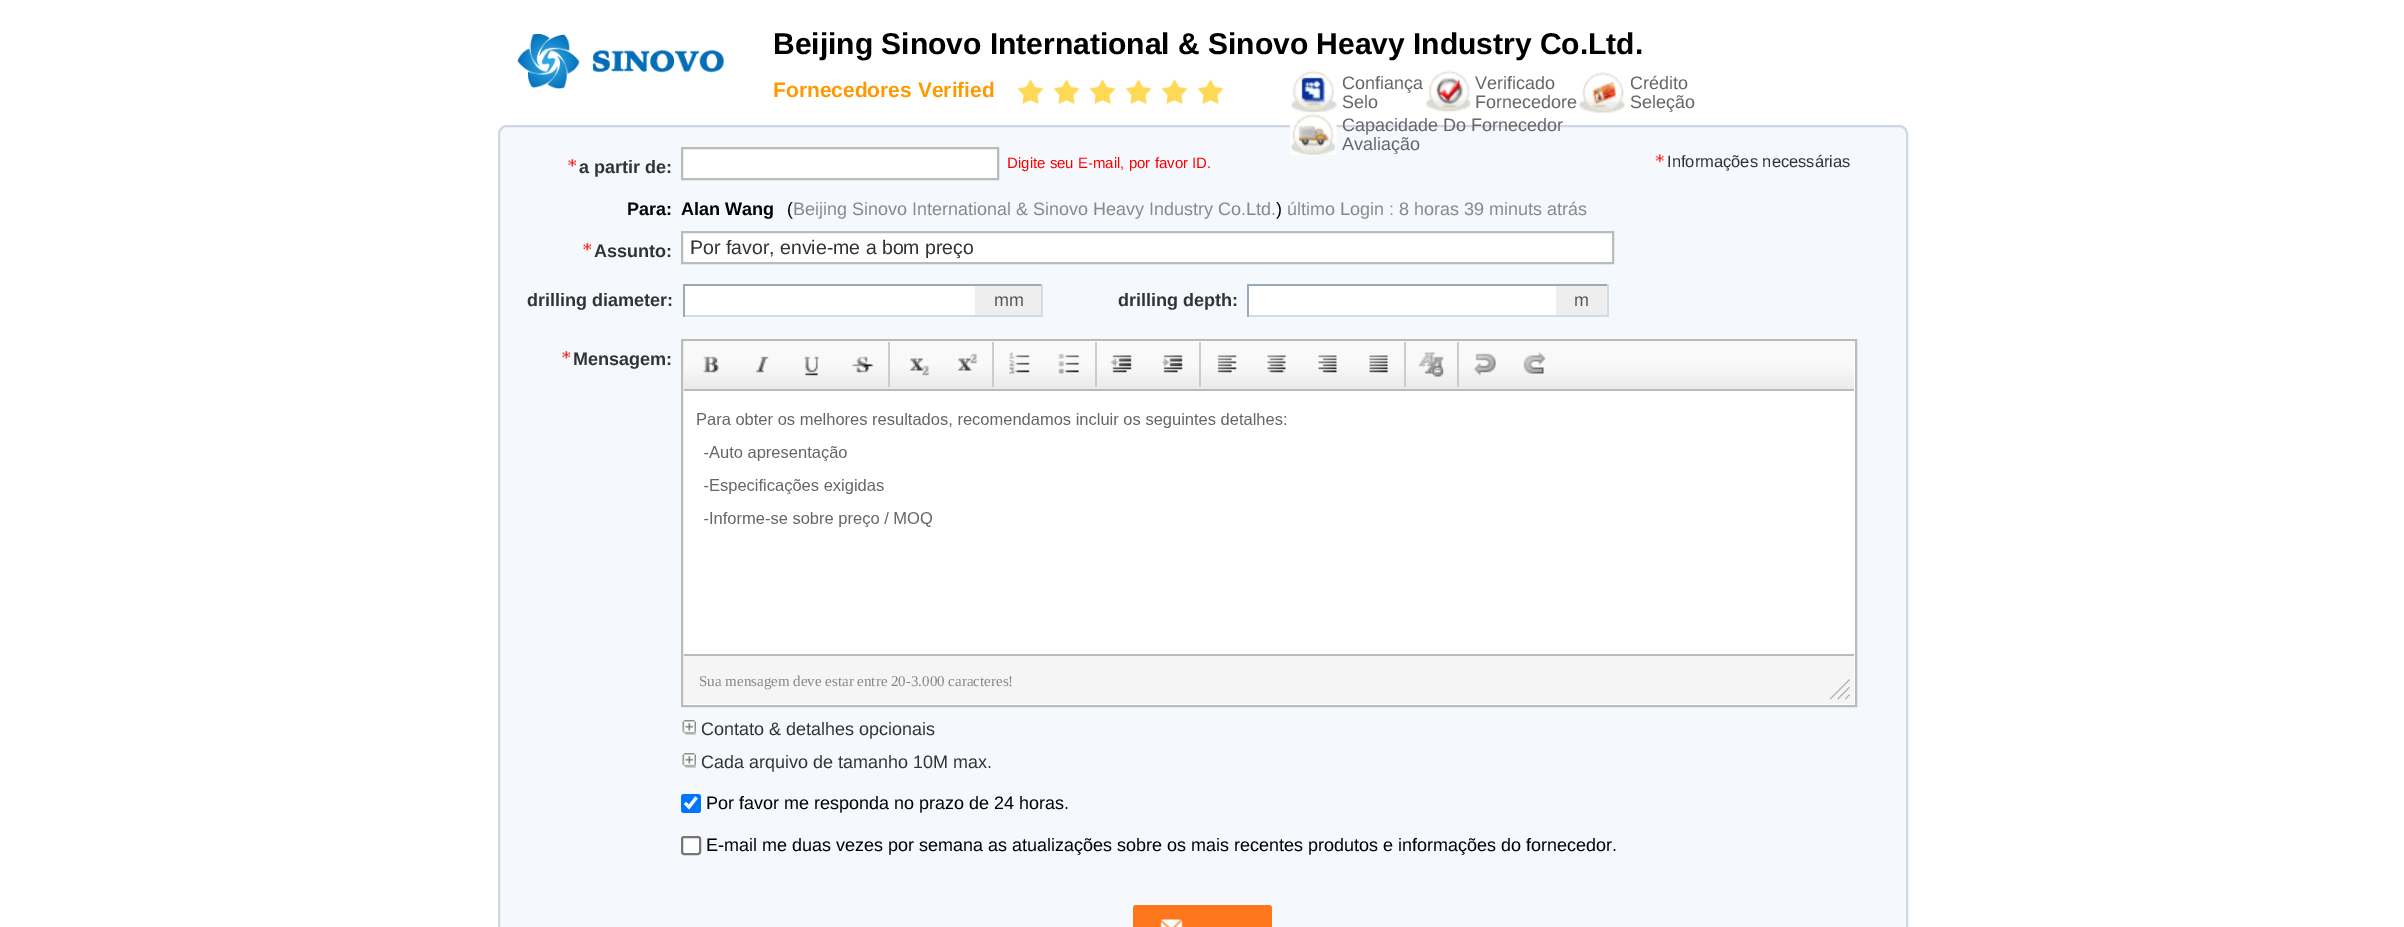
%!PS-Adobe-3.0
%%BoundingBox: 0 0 2404 927
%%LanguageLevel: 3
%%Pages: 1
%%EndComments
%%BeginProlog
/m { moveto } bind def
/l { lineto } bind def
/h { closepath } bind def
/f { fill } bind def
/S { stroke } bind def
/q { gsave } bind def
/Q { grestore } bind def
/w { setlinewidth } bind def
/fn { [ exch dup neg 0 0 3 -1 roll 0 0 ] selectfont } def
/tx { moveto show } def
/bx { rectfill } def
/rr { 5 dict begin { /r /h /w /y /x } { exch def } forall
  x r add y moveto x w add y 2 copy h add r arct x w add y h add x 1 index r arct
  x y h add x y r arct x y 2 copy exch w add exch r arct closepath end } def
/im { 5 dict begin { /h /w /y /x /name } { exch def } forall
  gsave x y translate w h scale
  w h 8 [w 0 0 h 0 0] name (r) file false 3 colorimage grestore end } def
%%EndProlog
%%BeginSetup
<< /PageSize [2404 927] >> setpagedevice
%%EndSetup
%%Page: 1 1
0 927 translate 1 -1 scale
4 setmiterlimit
1 setgray
0 0 2404 927 bx
(image0.raw) 517 34 207 55 im
/LiberationSans-Bold 30 fn
0 setgray
(Beijing Sinovo International & Sinovo Heavy Industry Co.Ltd.) 773 54 tx
/LiberationSans-Bold 21 fn
1 0.6 0 setrgbcolor
(Fornecedores Verified) 773 97 tx
(image1.raw) 1017 79 27 26 im
(image2.raw) 1053 79 27 26 im
(image2.raw) 1089 79 27 26 im
(image2.raw) 1125 79 27 26 im
(image2.raw) 1161 79 27 26 im
(image2.raw) 1197 79 27 26 im
(image3.raw) 1291 70 46 43 im
/LiberationSans-Regular 18 fn
0.4 setgray
(Confiança) 1342 89 tx
(Selo) 1342 108 tx
(image4.raw) 1426 70 45 43 im
(Verificado) 1475 89 tx
(Fornecedore) 1475 108 tx
(image5.raw) 1579 72 46 41 im
(Crédito) 1630 89 tx
(Seleção) 1630 108 tx
0.961 0.973 0.992 setrgbcolor
499 126 1408 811 8 rr q f Q
0.812 0.843 0.894 setrgbcolor
2 w
S
(image6.raw) 1290 112 47 43 im
0.4 setgray
(Capacidade Do Fornecedor) 1342 131 tx
(Avaliação) 1342 150 tx
(image7.raw) 568 158 8 9 im
/LiberationSans-Bold 18 fn
0.2 setgray
(a partir de:) 579 173 tx
1 setgray
682 148 m 998 148 l 998 179 l 682 179 l h q f Q
0.733 setgray
S
/LiberationSans-Regular 15 fn
1 0 0 setrgbcolor
(Digite seu E-mail, por favor ID.) 1007 168 tx
(image8.raw) 1655 154 9 9 im
/LiberationSans-Regular 16.5 fn
0.2 setgray
(Informações necessárias) 1667 167 tx
/LiberationSans-Bold 18 fn
0 setgray
(Para:) 627 215 tx
(Alan Wang) 681 215 tx
/LiberationSans-Regular 18 fn
(\() 787 215 tx
0.533 setgray
(Beijing Sinovo International & Sinovo Heavy Industry Co.Ltd.) 793 215 tx
0 setgray
(\)) 1276 215 tx
0.533 setgray
(último Login : 8 horas 39 minuts atrás) 1287 215 tx
(image7.raw) 583 242 8 9 im
/LiberationSans-Bold 18 fn
0.2 setgray
(Assunto:) 594 257 tx
1 setgray
682 232 m 1613 232 l 1613 263 l 682 263 l h q f Q
0.733 setgray
S
/LiberationSans-Regular 19.5 fn
0.2 setgray
(Por favor, envie-me a bom preço) 690 254 tx
/LiberationSans-Bold 18 fn
(drilling diameter:) 527 306 tx
1 setgray
685 286 290 29 bx
0.6 0.667 0.741 setrgbcolor
683 284 360 2 bx
0.824 0.863 0.91 setrgbcolor
683 315 295 2 bx
0.6 0.667 0.741 setrgbcolor
683 284 2 33 bx
0.933 setgray
975 286 66 29 bx
0.824 0.863 0.91 setrgbcolor
1041 284 2 33 bx
975 315 68 2 bx
/LiberationSans-Regular 18 fn
0.333 setgray
(mm) 994 306 tx
/LiberationSans-Bold 18 fn
0.2 setgray
(drilling depth:) 1118 306 tx
1 setgray
1249 286 307 29 bx
0.6 0.667 0.741 setrgbcolor
1247 284 361 2 bx
0.824 0.863 0.91 setrgbcolor
1247 315 312 2 bx
0.6 0.667 0.741 setrgbcolor
1247 284 2 33 bx
0.933 setgray
1556 286 51 29 bx
0.824 0.863 0.91 setrgbcolor
1607 284 2 33 bx
1556 315 52 2 bx
/LiberationSans-Regular 18 fn
0.333 setgray
(m) 1574 306 tx
(image7.raw) 562 350 8 9 im
/LiberationSans-Bold 18 fn
0.2 setgray
(Mensagem:) 573 365 tx
1 setgray
682 340 m 1856 340 l 1856 706 l 682 706 l h q f Q
0.733 setgray
S
q 684 341 m 1854 341 l 1854 389 l 684 389 l h clip newpath
<< /ShadingType 2 /ColorSpace /DeviceRGB /Coords [1269 340 1269 389] /Extend [true true] /Function << /FunctionType 3 /Domain [0 1] /Functions [<< /FunctionType 2 /Domain [0 1] /C0 [0.976 0.976 0.976] /C1 [0.976 0.976 0.976] /N 1 >> << /FunctionType 2 /Domain [0 1] /C0 [0.976 0.976 0.976] /C1 [0.922 0.922 0.922] /N 1 >>] /Bounds [0.5] /Encode [0 1 0 1] >> >> shfill Q
684 389 1170 2 bx
(image9.raw) 703 356 16 17 im
(image10.raw) 755 356 14 17 im
(image11.raw) 804 356 16 20 im
(image12.raw) 851 356 23 17 im
0.8 setgray
888 342 2 45 bx
(image13.raw) 910 358 20 18 im
(image14.raw) 958 353 20 18 im
992 342 2 45 bx
(image15.raw) 1009 352 21 22 im
(image16.raw) 1058 353 21 21 im
1095 342 2 45 bx
(image17.raw) 1110 355 22 18 im
(image18.raw) 1162 355 21 18 im
1199 342 2 45 bx
(image19.raw) 1217 355 20 18 im
(image20.raw) 1267 355 19 18 im
(image21.raw) 1318 355 19 18 im
(image22.raw) 1369 355 19 18 im
1404 342 2 45 bx
(image23.raw) 1418 352 26 25 im
1457 342 2 45 bx
(image24.raw) 1474 353 22 23 im
(image25.raw) 1523 352 23 22 im
(image26.raw) 697 413 590 114 im
0.961 setgray
684 656 1170 48 bx
0.733 setgray
684 654 1170 2 bx
/LiberationSerif-Regular 15 fn
0.533 setgray
(Sua mensagem deve estar entre 20-3.000 caracteres!) 699 686 tx
(image27.raw) 1830 679 20 21 im
(image28.raw) 682 720 14 15 im
/LiberationSans-Regular 18 fn
0.2 setgray
(Contato & detalhes opcionais) 701 735 tx
(image28.raw) 682 753 14 15 im
(Cada arquivo de tamanho 10M max.) 701 768 tx
0 0.459 1 setrgbcolor
681 794 20 19 3 rr f
1 setgray
3.1 w
685 803 m 689 807 l 696.5 797.5 l S
0 setgray
(Por favor me responda no prazo de 24 horas.) 706 809 tx
1 setgray
682 837 18 17 2 rr q f Q
0.463 setgray
2 w
S
0 setgray
(E-mail me duas vezes por semana as atualizações sobre os mais recentes produtos e informações do fornecedor.) 706 851 tx
1 0.467 0.11 setrgbcolor
1133 905 139 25 3 rr f
(image29.raw) 1160 919 23 8 im
showpage
%%EOF
